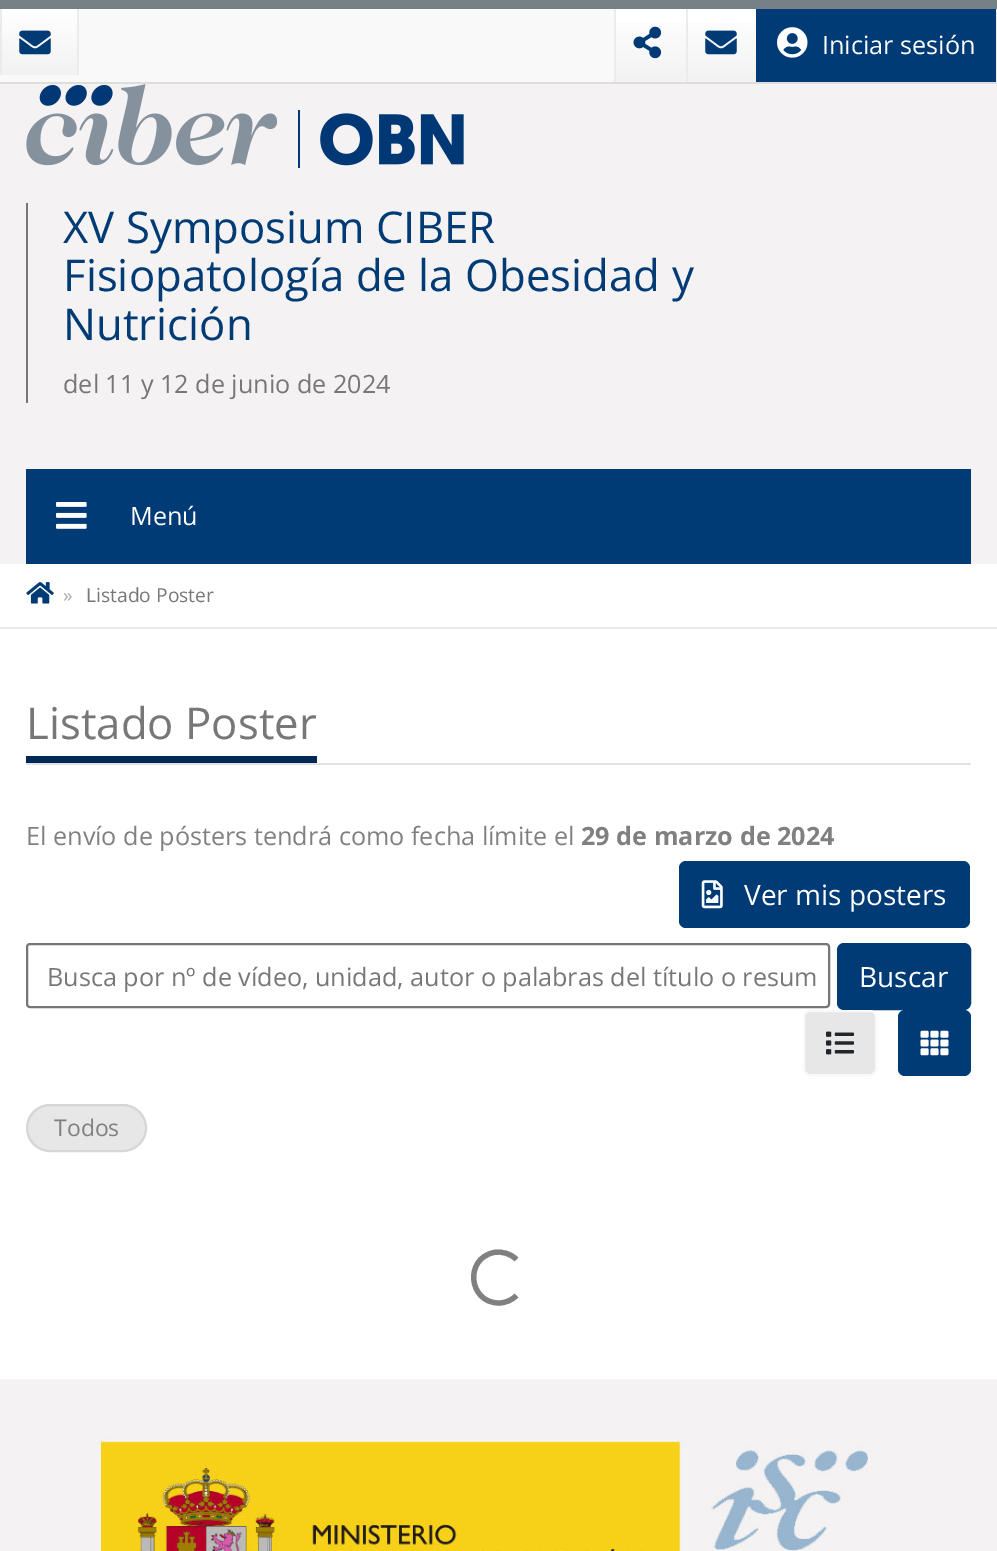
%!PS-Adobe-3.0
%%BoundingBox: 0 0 997 1551
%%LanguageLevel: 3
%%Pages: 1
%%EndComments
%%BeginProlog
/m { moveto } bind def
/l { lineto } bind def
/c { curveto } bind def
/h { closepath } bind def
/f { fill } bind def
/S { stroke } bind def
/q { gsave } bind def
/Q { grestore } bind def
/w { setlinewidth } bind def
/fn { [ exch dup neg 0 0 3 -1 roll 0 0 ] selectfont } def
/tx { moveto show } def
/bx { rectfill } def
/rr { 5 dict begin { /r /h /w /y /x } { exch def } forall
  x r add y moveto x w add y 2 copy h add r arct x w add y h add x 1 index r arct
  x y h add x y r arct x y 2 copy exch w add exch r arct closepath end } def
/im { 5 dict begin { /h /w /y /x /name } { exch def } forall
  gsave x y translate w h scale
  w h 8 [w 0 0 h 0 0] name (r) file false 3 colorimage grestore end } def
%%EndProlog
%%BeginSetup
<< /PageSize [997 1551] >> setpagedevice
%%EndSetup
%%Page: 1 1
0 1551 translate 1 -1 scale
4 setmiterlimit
1 setgray
0 0 997 1551 bx
0.976 setgray
0 9 614 73 bx
0.463 0.506 0.529 setrgbcolor
0 0 997 9 bx
0.867 setgray
0 82 997 2 bx
q 2 9 m 77 9 l 77 75 l 2 75 l h clip newpath
<< /ShadingType 2 /ColorSpace /DeviceRGB /Coords [39 9 39 75] /Extend [true true] /Function << /FunctionType 2 /Domain [0 1] /C0 [1 1 1] /C1 [0.949 0.949 0.949] /N 1 >> >> shfill Q
0.922 setgray
77 9 2 66 bx
0 9 2 66 bx
(image0.raw) 19 30 32 25 im
q 616 23 m 686 23 l 686 82 l 616 82 l h clip newpath
<< /ShadingType 2 /ColorSpace /DeviceRGB /Coords [651 9 651 82] /Extend [true true] /Function << /FunctionType 2 /Domain [0 1] /C0 [1 1 1] /C1 [0.949 0.949 0.949] /N 1 >> >> shfill Q
686 9 2 73 bx
614 9 2 73 bx
(image1.raw) 633 26 29 33 im
q 688 23 m 756 23 l 756 82 l 688 82 l h clip newpath
<< /ShadingType 2 /ColorSpace /DeviceRGB /Coords [725 9 725 82] /Extend [true true] /Function << /FunctionType 2 /Domain [0 1] /C0 [1 1 1] /C1 [0.949 0.949 0.949] /N 1 >> >> shfill Q
(image2.raw) 705 30 32 25 im
0 0.231 0.459 setrgbcolor
756 9 240 73 bx
0.922 setgray
996 9 1 73 bx
(image3.raw) 777 27 31 31 im
/OpenSans-Regular 25.2 fn
1 setgray
(Iniciar sesión) 822 54 tx
0.957 0.949 0.949 setrgbcolor
0 84 997 480 bx
(image4.raw) 26 84 438 84 im
0.467 setgray
26 203 2 200 bx
/OpenSans-Regular 43.75 fn
0 0.231 0.459 setrgbcolor
(XV Symposium CIBER) 63 243 tx
(Fisiopatología de la Obesidad y) 63 291 tx
(Nutrición) 63 340 tx
/OpenSans-Regular 25.2 fn
0.467 setgray
(del 11 y 12 de junio de 2024) 63 393 tx
0 0.231 0.459 setrgbcolor
26 469 945 95 bx
(image5.raw) 56 502 31 27 im
1 setgray
(Menú) 130 525 tx
0.918 setgray
0 627 997 2 bx
(image6.raw) 26 582 28 22 im
/OpenSans-Regular 19.25 fn
0.659 setgray
(») 63 602 tx
0.467 setgray
(Listado Poster) 86 602 tx
0.882 setgray
26 763 945 2 bx
0 0.157 0.333 setrgbcolor
26 756 291 7 bx
/OpenSans-Regular 43.75 fn
0.467 setgray
(Listado Poster) 26 739 tx
/OpenSans-Regular 25.2 fn
0.502 setgray
(El envío de pósters tendrá como fecha límite el) 26 845 tx
/OpenSans-Bold 25.2 fn
(29 de marzo de 2024) 581 845 tx
0 0.231 0.459 setrgbcolor
679 861 291 67 7 rr f
(image7.raw) 701 880 22 29 im
/OpenSans-Regular 28 fn
1 setgray
(Ver mis posters) 744 905 tx
0.463 setgray
2 w
27 944 802 63 3 rr S
/OpenSans-Regular 25.2 fn
0.467 setgray
(Busca por nº de vídeo, unidad, autor o palabras del título o resum) 47 986 tx
0 0.231 0.459 setrgbcolor
838 944 132 65 6 rr q f Q
S
/OpenSans-Regular 28 fn
1 setgray
(Buscar) 859 987 tx
0.906 setgray
804 1011 72 64 6 rr q f Q
0.973 0.976 0.98 setrgbcolor
S
(image8.raw) 826 1031 28 24 im
0 0.231 0.459 setrgbcolor
898 1010 73 66 7 rr f
(image9.raw) 920 1030 29 26 im
0.906 setgray
27 1105 119 46 23 rr q f Q
0.839 setgray
S
/OpenSans-Regular 23 fn
0.502 setgray
(Todos) 54 1136 tx
5.2 w
516.5 1295.5 m 512 1300 505.5 1303 499 1303 c 468.5 1303 464 1258.5 494 1252.5 c 502 1251 510.5 1253.5 516.5 1259.5 c S
0.957 0.949 0.949 setrgbcolor
0 1379 997 172 bx
(image10.raw) 100 1437 768 114 im
showpage
%%EOF
